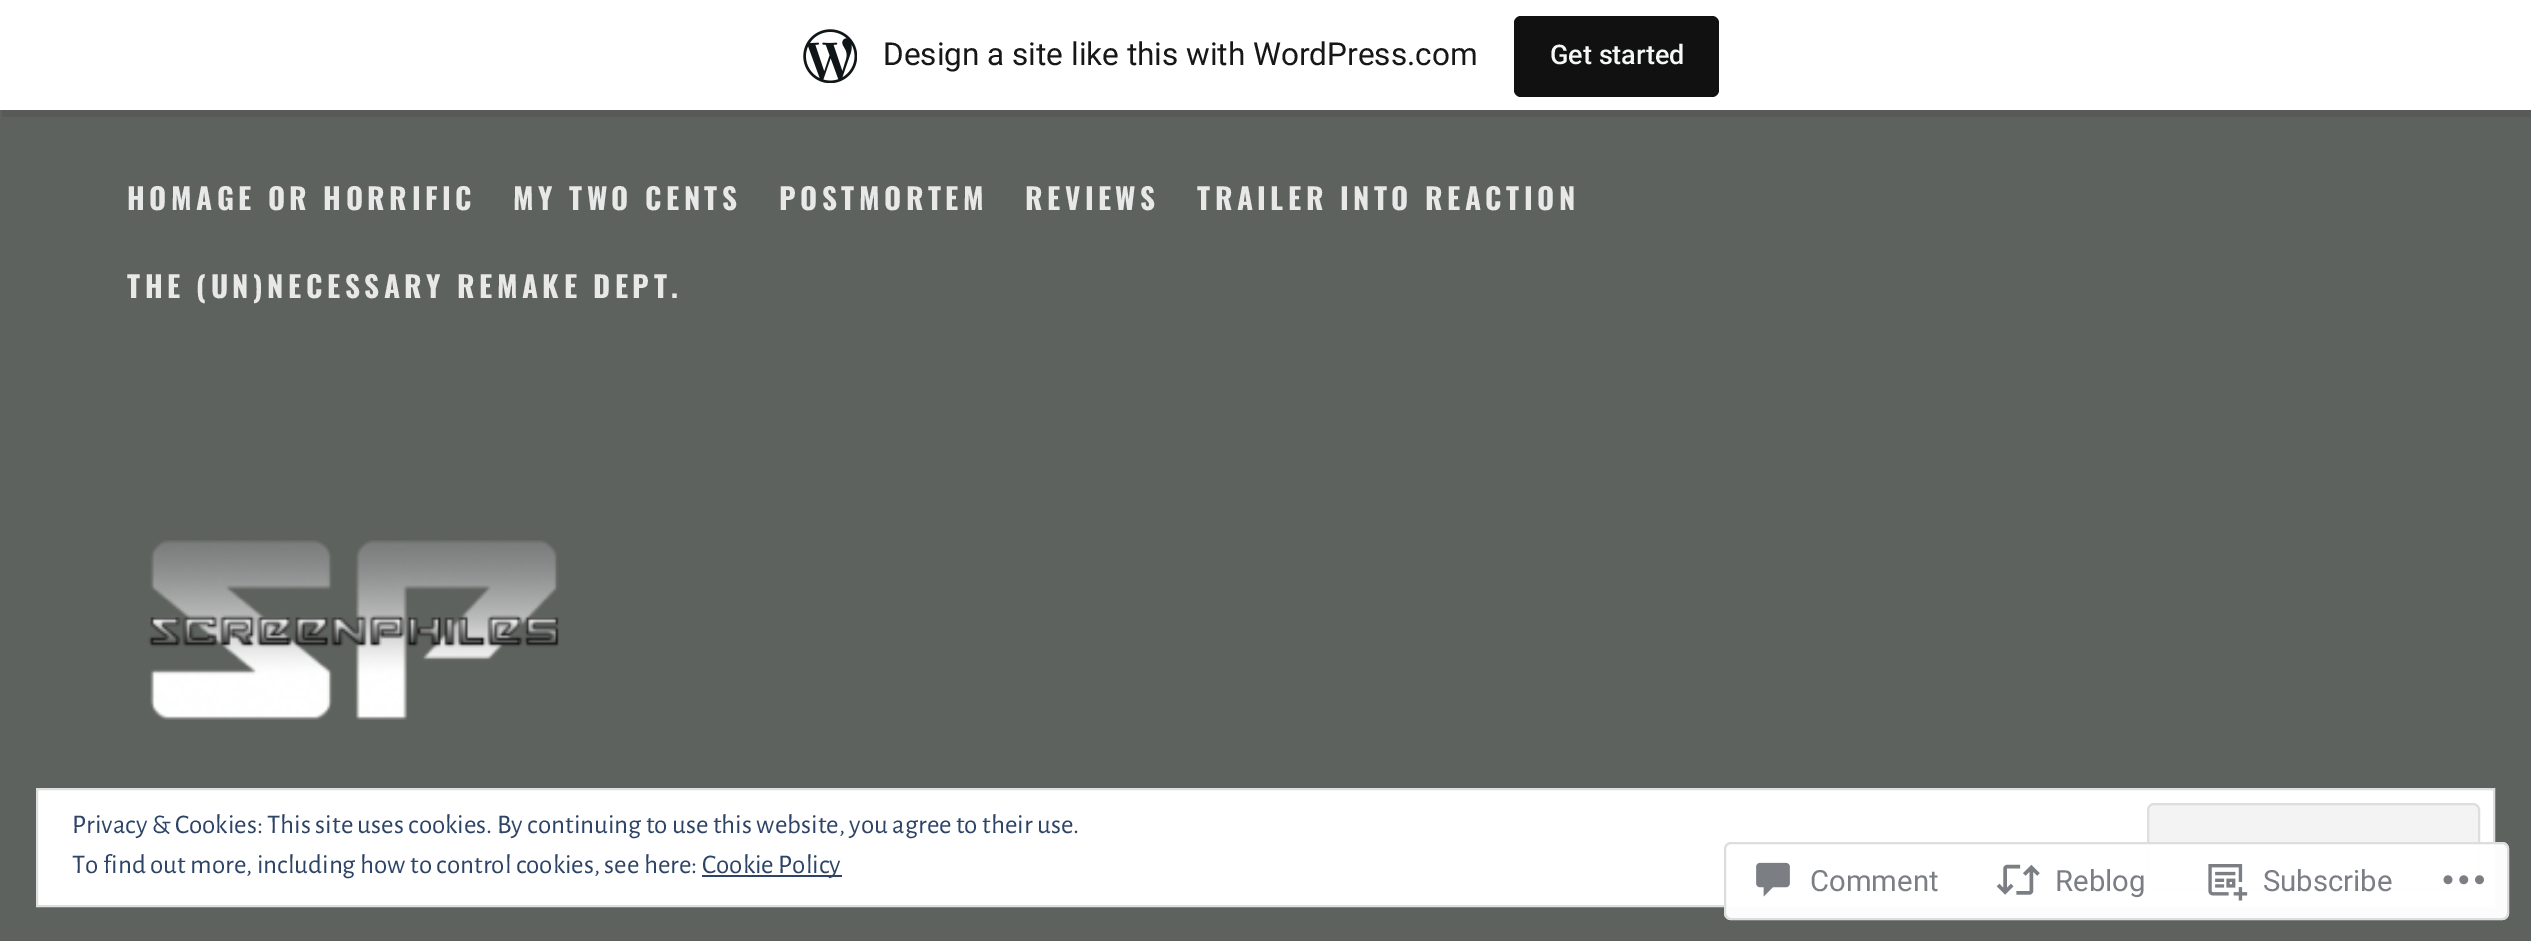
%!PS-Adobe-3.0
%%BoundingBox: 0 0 2531 941
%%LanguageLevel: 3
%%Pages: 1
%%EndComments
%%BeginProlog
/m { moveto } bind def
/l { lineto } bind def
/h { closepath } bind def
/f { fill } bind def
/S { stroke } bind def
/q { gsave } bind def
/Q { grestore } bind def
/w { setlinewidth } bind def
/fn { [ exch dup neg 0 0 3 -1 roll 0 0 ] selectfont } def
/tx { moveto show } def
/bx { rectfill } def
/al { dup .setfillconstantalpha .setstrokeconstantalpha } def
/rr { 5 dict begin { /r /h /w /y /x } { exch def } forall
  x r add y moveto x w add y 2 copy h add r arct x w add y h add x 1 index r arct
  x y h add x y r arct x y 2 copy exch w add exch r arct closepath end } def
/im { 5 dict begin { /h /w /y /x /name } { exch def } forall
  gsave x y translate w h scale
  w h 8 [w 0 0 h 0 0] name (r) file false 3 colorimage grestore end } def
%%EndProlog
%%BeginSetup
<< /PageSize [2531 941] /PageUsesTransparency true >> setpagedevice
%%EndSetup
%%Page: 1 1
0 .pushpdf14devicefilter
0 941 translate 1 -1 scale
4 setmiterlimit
0.369 0.384 0.369 setrgbcolor
0 0 2531 941 bx
0.08 al
0 setgray
2 110 m 2 117 l 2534 117 l 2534 7 l 2531 7 l 2531 110 l h f
1 al
1 setgray
0 0 2531 110 bx
(image0.raw) 803 29 54 54 im
/Roboto-Regular 31.5 fn
0.09 setgray
(Design a site like this with WordPress.com) 883 65 tx
0.067 setgray
1514 16 205 81 7 rr f
/Roboto-Medium 27 fn
0.965 0.969 0.969 setrgbcolor
(Get started) 1550 64 tx
/Oswald-Bold 29.25 fn
0.91 setgray
127 210 m 4.5 0 (HOMAGE OR HORRIFIC) ashow
513 210 m 4.5 0 (MY TWO CENTS) ashow
779 210 m 4.5 0 (POSTMORTEM) ashow
1025 210 m 4.5 0 (REVIEWS) ashow
1197 210 m 4.5 0 (TRAILER INTO REACTION) ashow
127 298 m 4.5 0 (THE \(UN\)NECESSARY REMAKE DEPT.) ashow
(image1.raw) 148 540 411 180 im
1 setgray
37 789 m 2494 789 l 2494 906 l 37 906 l h q f Q
0.871 setgray
2 w
S
/AlegreyaSans-Regular 27 fn
0.18 0.267 0.404 setrgbcolor
(Privacy & Cookies: This site uses cookies. By continuing to use this website, you agree to their use.) 72 833 tx
0.953 setgray
2148 804 331 86 6 rr q f Q
0.871 setgray
S
0.18 0.267 0.404 setrgbcolor
(To find out more, including how to control cookies, see here:) 72 873 tx
702 875 140 2 bx
(Cookie Policy) 702 873 tx
0.98 al
1 setgray
1724 842 785 78 7 rr f
0.863 0.863 0.871 setrgbcolor
1725 843 783 76 6 rr S
1 al
(image2.raw) 1756 862 34 35 im
/Roboto-Regular 29.25 fn
0.482 0.498 0.522 setrgbcolor
(Comment) 1810 891 tx
(image3.raw) 1996 864 44 31 im
(Reblog) 2055 891 tx
(image4.raw) 2208 864 40 37 im
(Subscribe) 2263 891 tx
(image5.raw) 2443 875 41 10 im
.poppdf14devicefilter showpage
%%EOF
